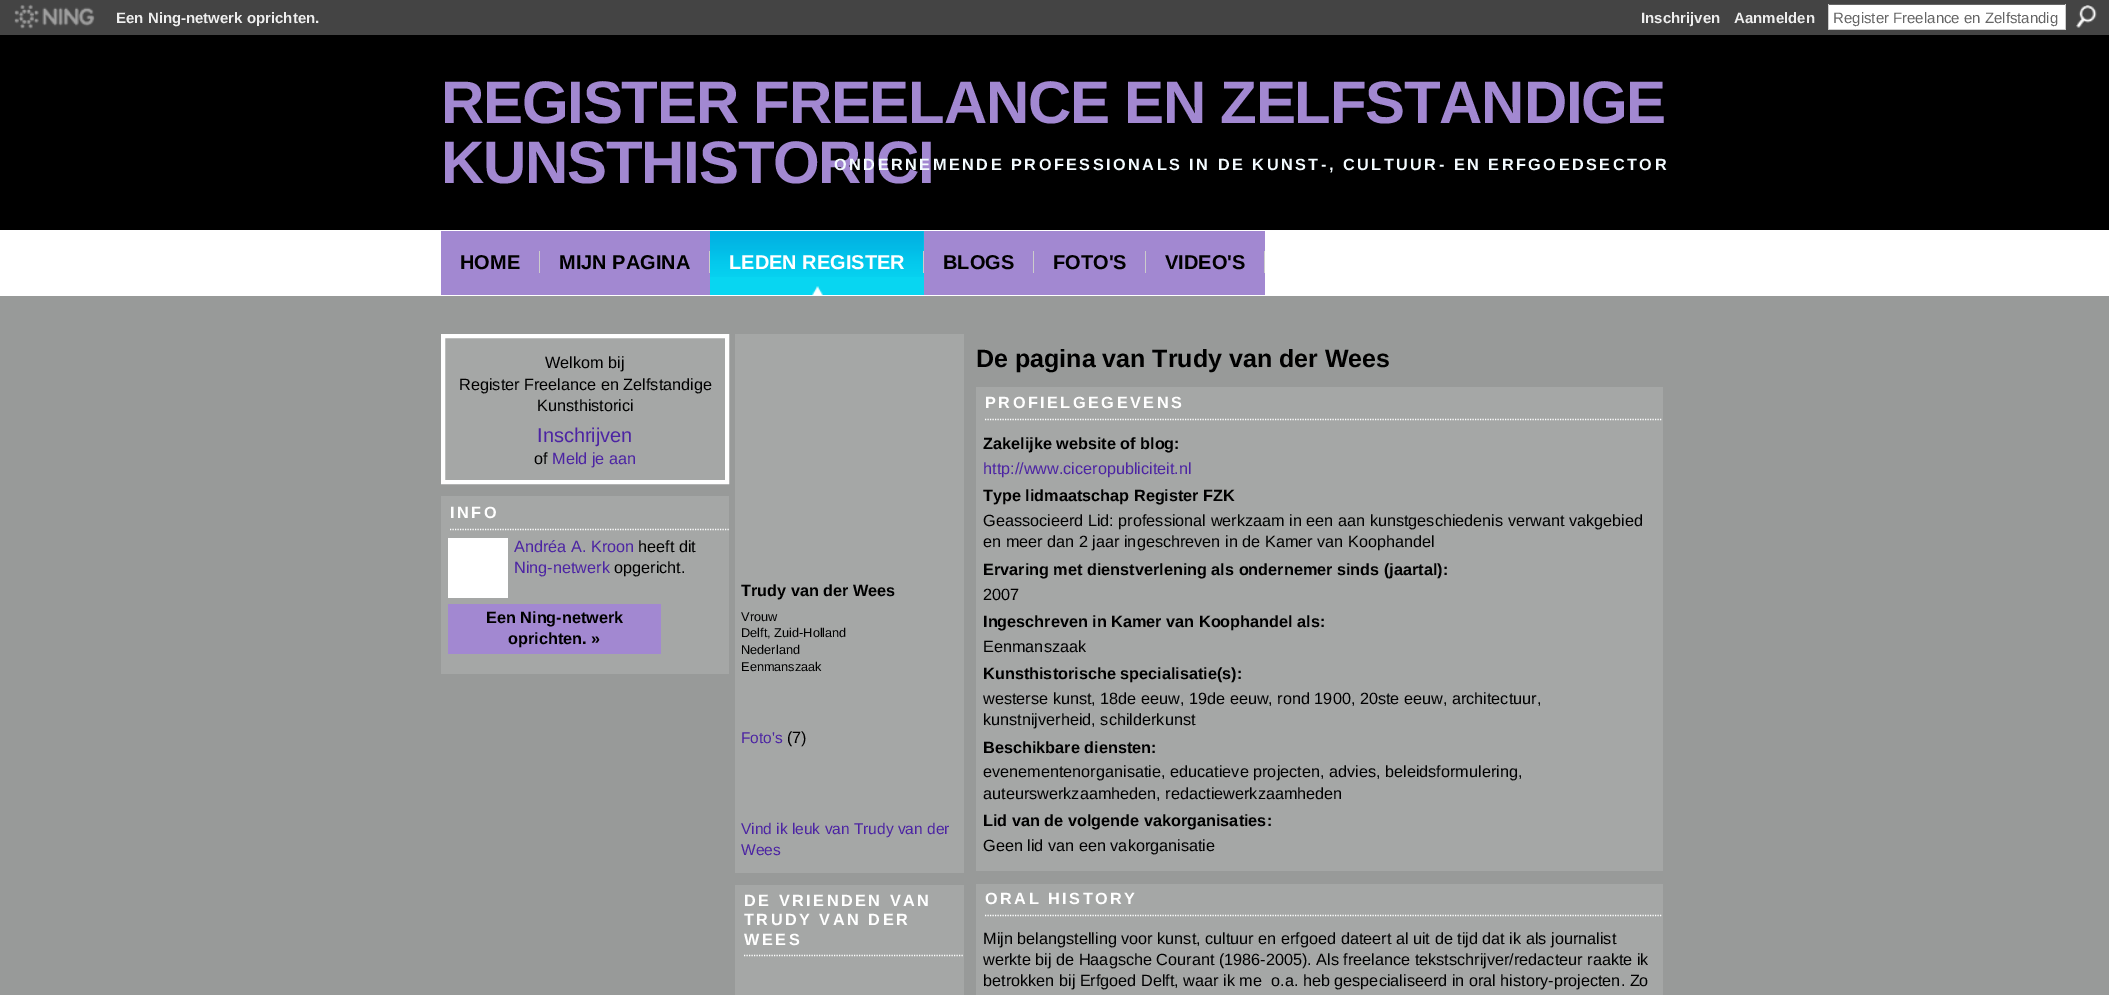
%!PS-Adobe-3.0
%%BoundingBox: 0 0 2109 995
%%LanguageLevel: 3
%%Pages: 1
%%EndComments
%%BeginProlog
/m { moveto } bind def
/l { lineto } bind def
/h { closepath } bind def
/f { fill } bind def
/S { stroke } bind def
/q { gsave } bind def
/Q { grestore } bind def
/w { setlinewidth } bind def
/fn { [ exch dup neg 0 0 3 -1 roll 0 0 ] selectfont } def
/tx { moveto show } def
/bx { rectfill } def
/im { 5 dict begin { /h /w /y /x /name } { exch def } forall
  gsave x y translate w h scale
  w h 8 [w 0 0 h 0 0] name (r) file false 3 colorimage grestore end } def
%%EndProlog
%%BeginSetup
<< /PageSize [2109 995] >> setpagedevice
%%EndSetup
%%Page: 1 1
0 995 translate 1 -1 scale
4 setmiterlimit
0.596 0.604 0.6 setrgbcolor
0 0 2109 995 bx
0.267 setgray
0 0 2109 35 bx
(image0.raw) 14 4 81 25 im
/LiberationSans-Bold 15 fn
0.933 setgray
(Een Ning-netwerk oprichten.) 116 23 tx
(Inschrijven) 1641 23 tx
(Aanmelden) 1734 23 tx
1 setgray
1829 5 236 24 bx
0.4 setgray
1828 4 238 1 bx
0.8 setgray
2065 4 1 26 bx
1828 29 238 1 bx
1828 4 1 26 bx
/LiberationSans-Regular 15 fn
0.4 setgray
(Register Freelance en Zelfstandig) 1833 23 tx
(image1.raw) 2076 5 21 23 im
0 setgray
0 35 2109 195 bx
/LiberationSans-Bold 60 fn
0.635 0.533 0.82 setrgbcolor
441 123 m -1.25 0 (REGISTER FREELANCE EN ZELFSTANDIGE) ashow
441 183 m -1.25 0 (KUNSTHISTORICI) ashow
/LiberationSans-Bold 16.25 fn
0.953 0.984 1 setrgbcolor
834 170 m 2.5 0 (ONDERNEMENDE PROFESSIONALS IN DE KUNST-, CULTUUR- EN ERFGOEDSECTOR) ashow
1 setgray
0 230 2109 66 bx
0.635 0.533 0.82 setrgbcolor
441 231 269 64 bx
/LiberationSans-Bold 20 fn
0 setgray
(HOME) 460 269 tx
0.8 setgray
539 251 1 22 bx
0 setgray
(MIJN PAGINA) 559 269 tx
0.8 setgray
709 251 1 22 bx
0.031 0.839 0.945 setrgbcolor
710 231 214 64 bx
(image2.raw) 710 231 214 46 im
(image3.raw) 812 286 11 9 im
1 setgray
(LEDEN REGISTER) 729 269 tx
0.8 setgray
923 251 1 22 bx
0.635 0.533 0.82 setrgbcolor
924 231 341 64 bx
0 setgray
(BLOGS) 943 269 tx
0.8 setgray
1033 251 1 22 bx
0 setgray
(FOTO'S) 1053 269 tx
0.8 setgray
1145 251 1 22 bx
0 setgray
(VIDEO'S) 1165 269 tx
0.8 setgray
1264 251 1 22 bx
0.647 0.655 0.651 setrgbcolor
443 336 m 727 336 l 727 482 l 443 482 l h q f Q
1 setgray
4 w
S
/LiberationSans-Regular 16.25 fn
0 setgray
(Welkom bij) 545 368 tx
(Register Freelance en Zelfstandige) 459 390 tx
(Kunsthistorici) 537 411 tx
/LiberationSans-Regular 20 fn
0.298 0.141 0.639 setrgbcolor
(Inschrijven) 537 442 tx
/LiberationSans-Regular 16.25 fn
0 setgray
(of) 534 464 tx
0.298 0.141 0.639 setrgbcolor
(Meld je aan) 552 464 tx
0.647 0.655 0.651 setrgbcolor
441 496 288 178 bx
1 setgray
1.2 w
[1.25 1.25] 0 setdash
450 529.5 m 729 529.5 l S
/LiberationSans-Bold 16.25 fn
450 518 m 2.5 0 (INFO) ashow
448 538 60 60 bx
/LiberationSans-Regular 16.25 fn
0.298 0.141 0.639 setrgbcolor
(Andréa A. Kroon) 514 552 tx
0 setgray
(heeft dit) 638 552 tx
0.298 0.141 0.639 setrgbcolor
(Ning-netwerk) 514 573 tx
0 setgray
(opgericht.) 614 573 tx
0.635 0.533 0.82 setrgbcolor
448 604 213 50 bx
/LiberationSans-Bold 16.25 fn
0 setgray
(Een Ning-netwerk) 486 623 tx
(oprichten. ») 508 644 tx
0.647 0.655 0.651 setrgbcolor
735 334 229 539 bx
0 setgray
(Trudy van der Wees) 741 596 tx
/LiberationSans-Regular 12.75 fn
(Vrouw) 741 621 tx
(Delft, Zuid-Holland) 741 637 tx
(Nederland) 741 654 tx
(Eenmanszaak) 741 671 tx
/LiberationSans-Regular 15.5 fn
0.298 0.141 0.639 setrgbcolor
(Foto's) 741 743 tx
/LiberationSans-Regular 16.25 fn
0 setgray
(\(7\)) 787 743 tx
/LiberationSans-Regular 15.5 fn
0.298 0.141 0.639 setrgbcolor
(Vind ik leuk van Trudy van der) 741 834 tx
(Wees) 741 855 tx
0.647 0.655 0.651 setrgbcolor
735 885 229 110 bx
1 setgray
744 955.5 m 964 955.5 l S
/LiberationSans-Bold 16.25 fn
744 906 m 2.5 0 (DE VRIENDEN VAN) ashow
744 925 m 2.5 0 (TRUDY VAN DER) ashow
744 945 m 2.5 0 (WEES) ashow
/LiberationSans-Bold 25 fn
0 setgray
(De pagina van Trudy van der Wees) 976 367 tx
0.647 0.655 0.651 setrgbcolor
976 387 687 484 bx
1 setgray
985 419.5 m 1662.5 419.5 l S
/LiberationSans-Bold 16.25 fn
985 408 m 2.5 0 (PROFIELGEGEVENS) ashow
0 setgray
(Zakelijke website of blog:) 983 449 tx
/LiberationSans-Regular 16.25 fn
0.298 0.141 0.639 setrgbcolor
(http://www.ciceropubliciteit.nl) 983 474 tx
/LiberationSans-Bold 16.25 fn
0 setgray
(Type lidmaatschap Register FZK) 983 501 tx
/LiberationSans-Regular 16.25 fn
(Geassocieerd Lid: professional werkzaam in een aan kunstgeschiedenis verwant vakgebied) 983 526 tx
(en meer dan 2 jaar ingeschreven in de Kamer van Koophandel) 983 547 tx
/LiberationSans-Bold 16.25 fn
(Ervaring met dienstverlening als ondernemer sinds \(jaartal\):) 983 575 tx
/LiberationSans-Regular 16.25 fn
(2007) 983 600 tx
/LiberationSans-Bold 16.25 fn
(Ingeschreven in Kamer van Koophandel als:) 983 627 tx
/LiberationSans-Regular 16.25 fn
(Eenmanszaak) 983 652 tx
/LiberationSans-Bold 16.25 fn
(Kunsthistorische specialisatie\(s\):) 983 679 tx
/LiberationSans-Regular 16.25 fn
(westerse kunst, 18de eeuw, 19de eeuw, rond 1900, 20ste eeuw, architectuur,) 983 704 tx
(kunstnijverheid, schilderkunst) 983 725 tx
/LiberationSans-Bold 16.25 fn
(Beschikbare diensten:) 983 753 tx
/LiberationSans-Regular 16.25 fn
(evenementenorganisatie, educatieve projecten, advies, beleidsformulering,) 983 777 tx
(auteurswerkzaamheden, redactiewerkzaamheden) 983 799 tx
/LiberationSans-Bold 16.25 fn
(Lid van de volgende vakorganisaties:) 983 826 tx
/LiberationSans-Regular 16.25 fn
(Geen lid van een vakorganisatie) 983 851 tx
0.647 0.655 0.651 setrgbcolor
976 884 687 111 bx
1 setgray
985 915.5 m 1662.5 915.5 l S
/LiberationSans-Bold 16.25 fn
985 904 m 2.5 0 (ORAL HISTORY) ashow
/LiberationSans-Regular 16.25 fn
0 setgray
(Mijn belangstelling voor kunst, cultuur en erfgoed dateert al uit de tijd dat ik als journalist) 983 944 tx
(werkte bij de Haagsche Courant \(1986-2005\). Als freelance tekstschrijver/redacteur raakte ik) 983 965 tx
(betrokken bij Erfgoed Delft, waar ik me  o.a. heb gespecialiseerd in oral history-projecten. Zo) 983 986 tx
showpage
%%EOF
